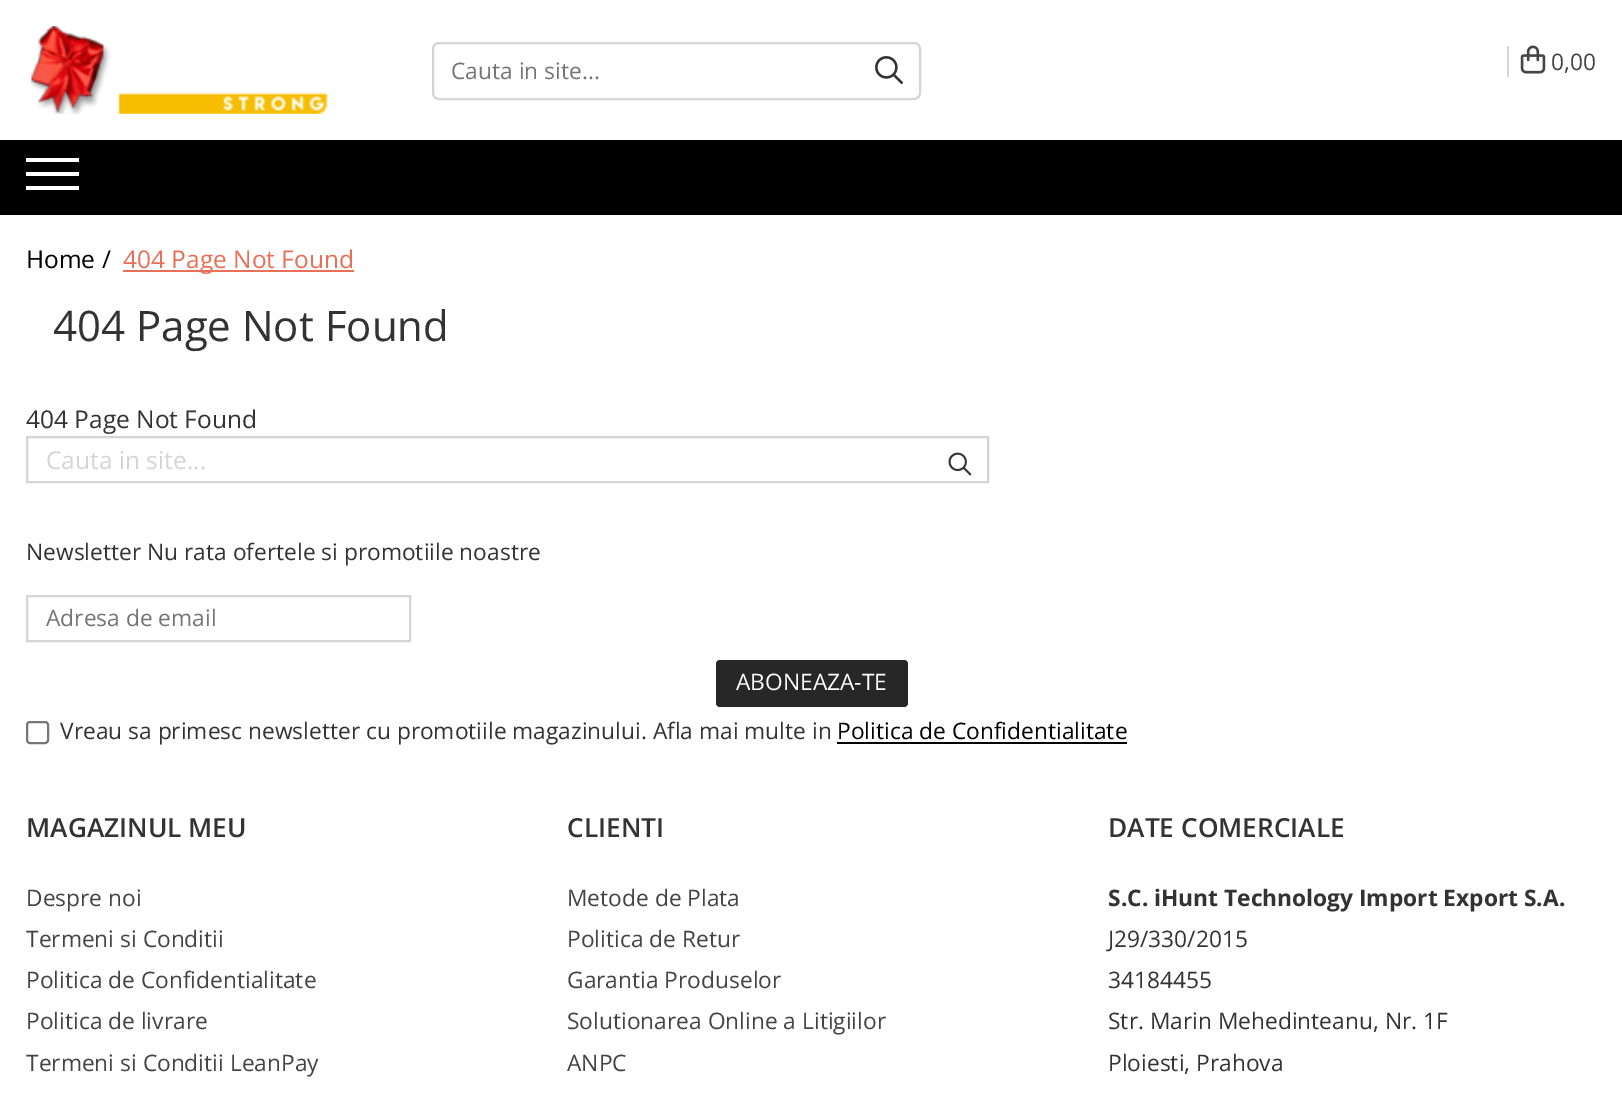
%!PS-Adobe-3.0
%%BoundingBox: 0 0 1622 1093
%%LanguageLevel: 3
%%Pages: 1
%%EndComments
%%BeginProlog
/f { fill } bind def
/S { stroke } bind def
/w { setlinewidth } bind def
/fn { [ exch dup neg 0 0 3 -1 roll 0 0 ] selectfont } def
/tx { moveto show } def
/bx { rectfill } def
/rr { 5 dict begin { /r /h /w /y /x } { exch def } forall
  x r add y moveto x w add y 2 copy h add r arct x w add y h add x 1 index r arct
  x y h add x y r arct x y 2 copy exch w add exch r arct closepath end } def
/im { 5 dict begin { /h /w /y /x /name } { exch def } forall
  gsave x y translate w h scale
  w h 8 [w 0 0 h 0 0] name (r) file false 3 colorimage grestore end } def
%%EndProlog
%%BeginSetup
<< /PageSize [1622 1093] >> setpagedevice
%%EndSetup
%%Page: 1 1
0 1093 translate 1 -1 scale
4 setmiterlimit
1 setgray
0 0 1622 1093 bx
(image0.raw) 30 26 298 88 im
0.835 setgray
2 w
433 43 487 56 6 rr S
/OpenSans-Regular 22.75 fn
0.459 setgray
(Cauta in site...) 451 79 tx
(image1.raw) 875 56 28 28 im
0.835 setgray
1507 46 2 31 bx
(image2.raw) 1520 45 26 29 im
0.267 setgray
(0,00) 1551 70 tx
0 setgray
0 140 1622 75 bx
1 setgray
26 172 53 4 bx
26 158 53 4 bx
26 186 53 4 bx
/OpenSans-Regular 24.5 fn
0 setgray
(Home /) 26 268 tx
0.914 0.435 0.337 setrgbcolor
123 270 231 2 bx
(404 Page Not Found) 123 268 tx
/OpenSans-Regular 42 fn
0.2 setgray
(404 Page Not Found) 53 341 tx
/OpenSans-Regular 24.5 fn
(404 Page Not Found) 26 428 tx
0.835 setgray
27 437 961 45 rectstroke
(Cauta in site...) 46 469 tx
(image3.raw) 948 452 24 24 im
/OpenSans-Regular 22.75 fn
0.2 setgray
(Newsletter Nu rata ofertele si promotiile noastre) 26 560 tx
0.835 setgray
27 596 383 45 rectstroke
0.459 setgray
(Adresa de email) 46 626 tx
0.153 setgray
716 660 192 47 4 rr f
1 setgray
(ABONEAZA-TE) 736 690 tx
0.463 setgray
27 722 21 21 3 rr S
0.2 setgray
(Vreau sa primesc newsletter cu promotiile magazinului. Afla mai multe in) 60 739 tx
0 setgray
(Politica de Confidentialitate) 837 739 tx
837 742 290 2 bx
/OpenSans-SemiBold 26.25 fn
0.2 setgray
(MAGAZINUL MEU) 26 837 tx
/OpenSans-Regular 22.75 fn
0.267 setgray
(Despre noi) 26 906 tx
(Termeni si Conditii) 26 947 tx
(Politica de Confidentialitate) 26 988 tx
(Politica de livrare) 26 1029 tx
(Termeni si Conditii LeanPay) 26 1071 tx
/OpenSans-SemiBold 26.25 fn
0.2 setgray
(CLIENTI) 567 837 tx
/OpenSans-Regular 22.75 fn
0.267 setgray
(Metode de Plata) 567 906 tx
(Politica de Retur) 567 947 tx
(Garantia Produselor) 567 988 tx
(Solutionarea Online a Litigiilor) 567 1029 tx
(ANPC) 567 1071 tx
/OpenSans-SemiBold 26.25 fn
0.2 setgray
(DATE COMERCIALE) 1108 837 tx
/OpenSans-Bold 22.75 fn
(S.C. iHunt Technology Import Export S.A.) 1108 906 tx
/OpenSans-Regular 22.75 fn
(J29/330/2015) 1108 947 tx
(34184455) 1108 988 tx
(Str. Marin Mehedinteanu, Nr. 1F) 1108 1029 tx
(Ploiesti, Prahova) 1108 1071 tx
showpage
%%EOF
